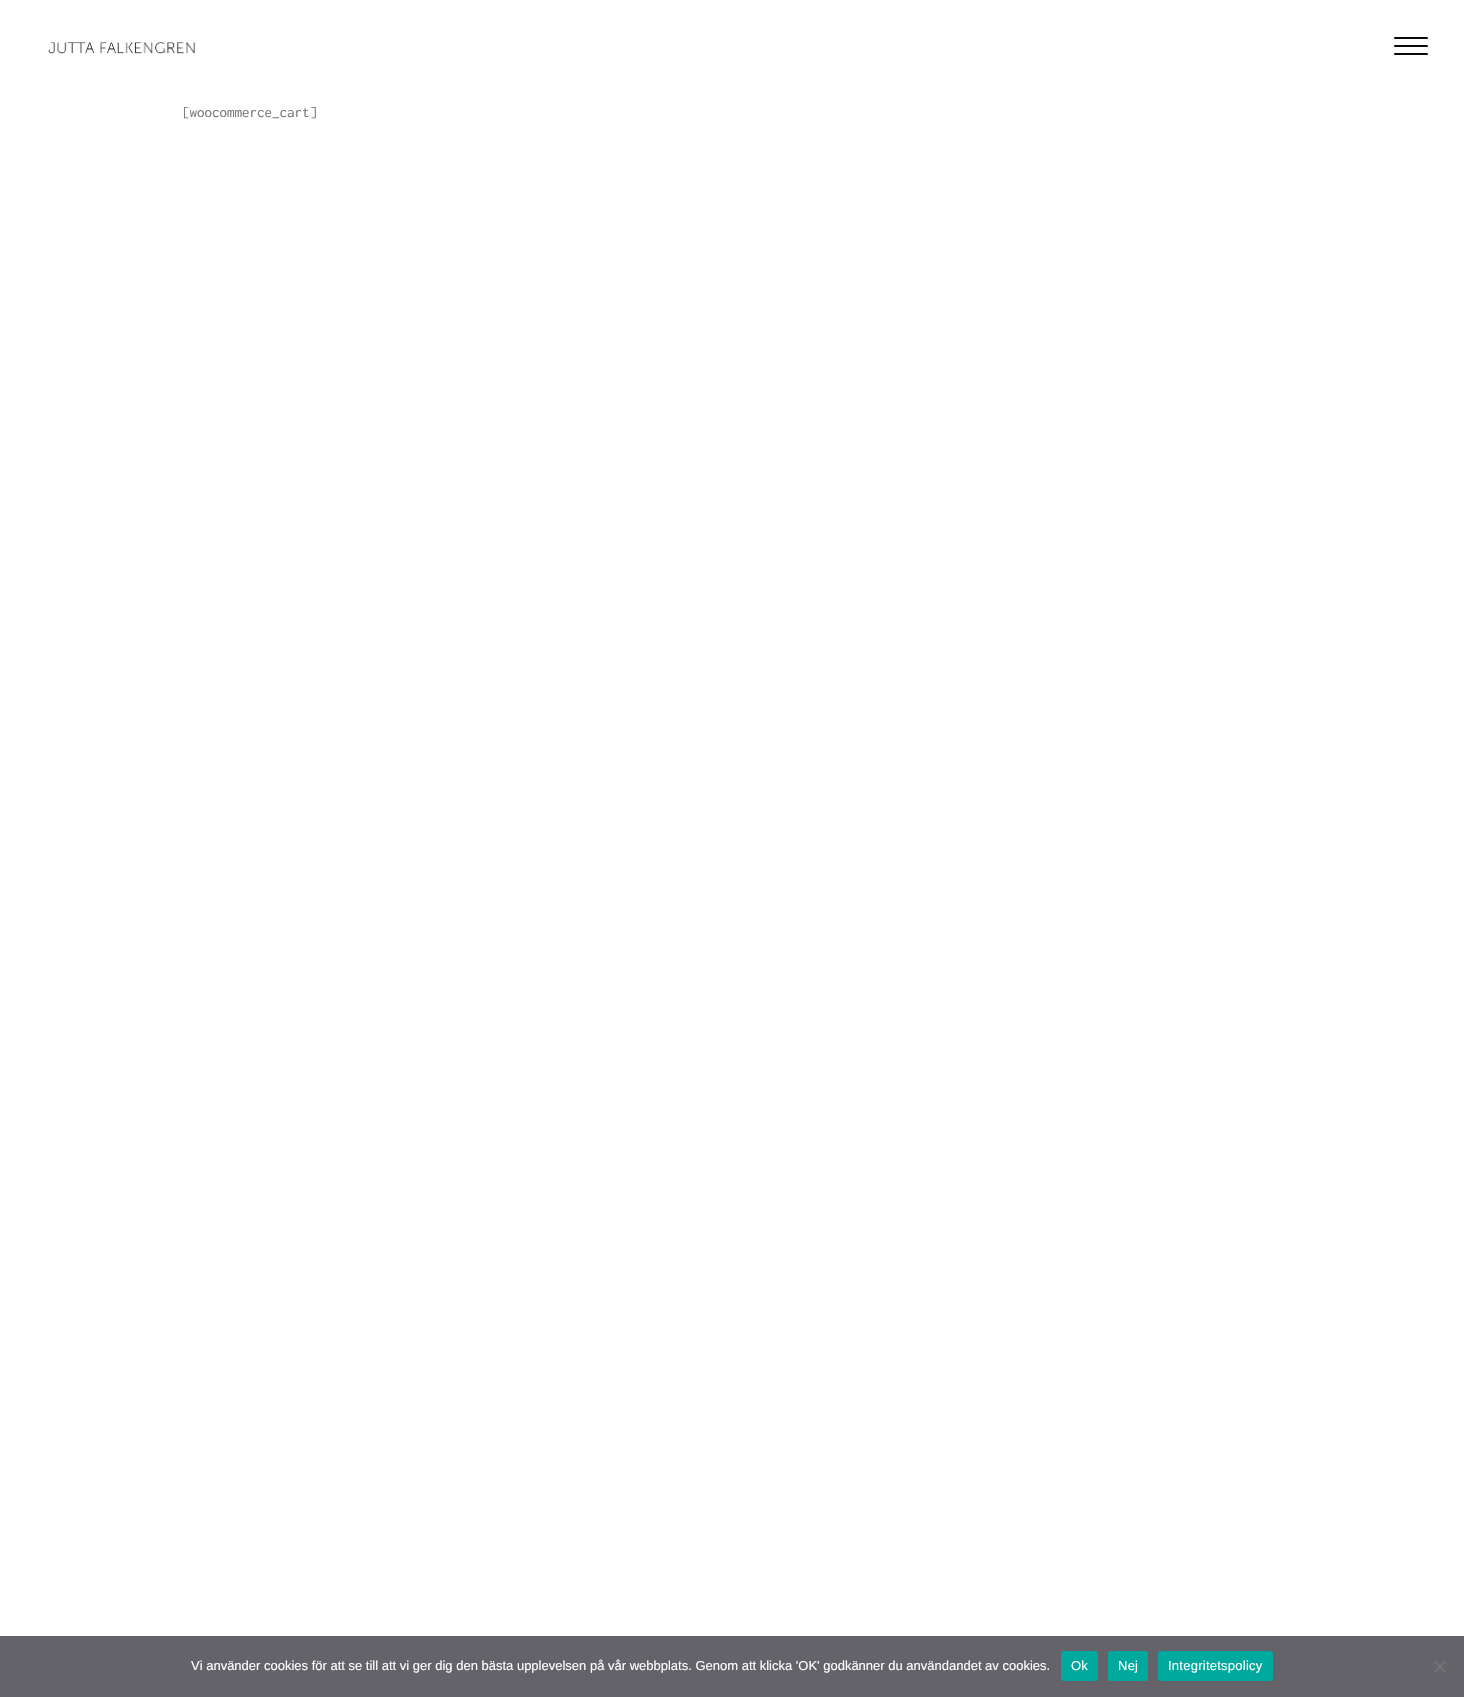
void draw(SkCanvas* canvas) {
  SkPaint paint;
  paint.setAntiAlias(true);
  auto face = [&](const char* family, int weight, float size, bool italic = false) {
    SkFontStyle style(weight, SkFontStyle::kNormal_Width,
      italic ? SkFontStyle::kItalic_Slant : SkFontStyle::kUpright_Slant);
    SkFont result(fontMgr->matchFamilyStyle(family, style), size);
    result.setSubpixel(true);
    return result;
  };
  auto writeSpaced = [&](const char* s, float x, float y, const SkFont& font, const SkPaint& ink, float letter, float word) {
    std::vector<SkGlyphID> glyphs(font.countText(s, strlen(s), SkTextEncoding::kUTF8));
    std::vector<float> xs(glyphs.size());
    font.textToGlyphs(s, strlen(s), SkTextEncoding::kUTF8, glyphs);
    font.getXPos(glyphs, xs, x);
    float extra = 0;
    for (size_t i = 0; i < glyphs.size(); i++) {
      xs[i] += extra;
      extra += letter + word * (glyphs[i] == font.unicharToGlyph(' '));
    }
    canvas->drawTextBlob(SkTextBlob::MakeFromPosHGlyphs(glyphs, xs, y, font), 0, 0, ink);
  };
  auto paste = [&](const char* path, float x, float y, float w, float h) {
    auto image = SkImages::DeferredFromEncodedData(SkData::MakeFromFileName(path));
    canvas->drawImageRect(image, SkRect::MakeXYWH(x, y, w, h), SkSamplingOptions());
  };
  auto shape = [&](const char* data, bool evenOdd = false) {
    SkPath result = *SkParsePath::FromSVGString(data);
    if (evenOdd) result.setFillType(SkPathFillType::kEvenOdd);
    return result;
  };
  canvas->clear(0xffffffff);
  paste("img/1.png", 48, 42, 148, 12);
  paint.setColor(0xff080808);
  canvas->drawRoundRect(SkRect::MakeXYWH(1394, 37, 34, 2), 1, 1, paint);
  canvas->drawRoundRect(SkRect::MakeXYWH(1394, 45, 34, 2), 1, 1, paint);
  canvas->drawRoundRect(SkRect::MakeXYWH(1394, 53, 34, 2), 1, 1, paint);
  paint.setColor(0xff636369);
  canvas->drawRect(SkRect::MakeXYWH(0, 1636, 1464, 61), paint);
  paint.setColor(0xff00a99d);
  canvas->drawRoundRect(SkRect::MakeXYWH(1061, 1651, 37, 30), 3, 3, paint);
  canvas->drawRoundRect(SkRect::MakeXYWH(1108, 1651, 40, 30), 3, 3, paint);
  canvas->drawRoundRect(SkRect::MakeXYWH(1158, 1651, 115, 30), 3, 3, paint);
  paint.setColor(0xff727275);
  canvas->drawPath(shape("M1444.5 1660.5L1446 1662L1435.5 1673L1434 1671.5Z"), paint);
  canvas->drawPath(shape("M1434 1662L1435.5 1660.5L1446 1671.5L1444.5 1673Z"), paint);
  auto f0 = face("Inconsolata", 400, 15);
  paint.setColor(0xff777777);
  canvas->drawString("[woocommerce_cart]", 182, 117, f0, paint);
  auto f1 = face("Liberation Sans", 400, 13);
  paint.setColor(0xffffffff);
  canvas->drawString("Vi använder cookies för att se till att vi ger dig den bästa upplevelsen på vår webbplats. Genom att klicka 'OK' godkänner du användandet av cookies.", 191, 1670, f1, paint);
  {
    const struct { const char* s; float x, y; } items[] = {
      {"Ok", 1071, 1670},
      {"Nej", 1118, 1670},
      {"Integritetspolicy", 1168, 1670},
    };
    for (auto [s, x, y] : items) {
      writeSpaced(s, x, y, f1, paint, 0.25f, 0);
    }
  }
}
